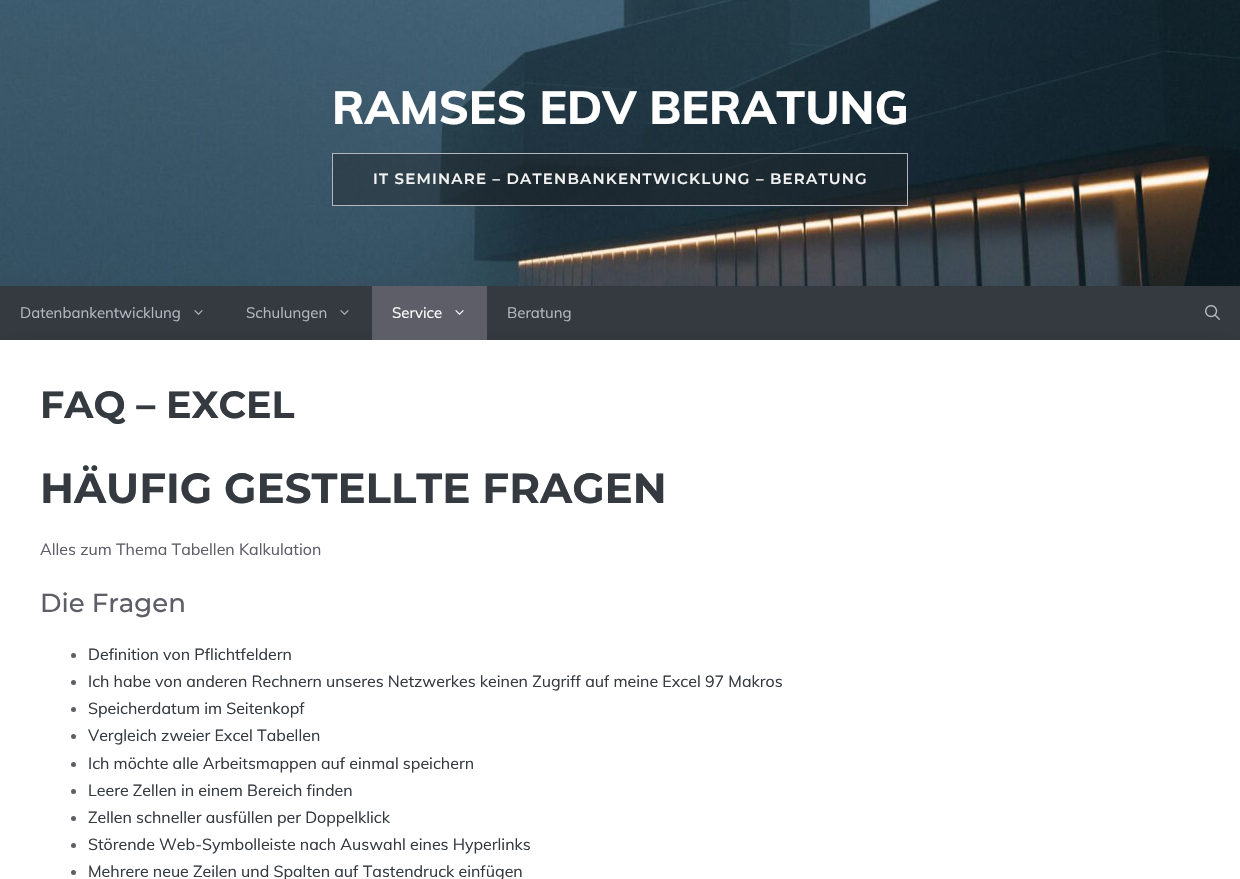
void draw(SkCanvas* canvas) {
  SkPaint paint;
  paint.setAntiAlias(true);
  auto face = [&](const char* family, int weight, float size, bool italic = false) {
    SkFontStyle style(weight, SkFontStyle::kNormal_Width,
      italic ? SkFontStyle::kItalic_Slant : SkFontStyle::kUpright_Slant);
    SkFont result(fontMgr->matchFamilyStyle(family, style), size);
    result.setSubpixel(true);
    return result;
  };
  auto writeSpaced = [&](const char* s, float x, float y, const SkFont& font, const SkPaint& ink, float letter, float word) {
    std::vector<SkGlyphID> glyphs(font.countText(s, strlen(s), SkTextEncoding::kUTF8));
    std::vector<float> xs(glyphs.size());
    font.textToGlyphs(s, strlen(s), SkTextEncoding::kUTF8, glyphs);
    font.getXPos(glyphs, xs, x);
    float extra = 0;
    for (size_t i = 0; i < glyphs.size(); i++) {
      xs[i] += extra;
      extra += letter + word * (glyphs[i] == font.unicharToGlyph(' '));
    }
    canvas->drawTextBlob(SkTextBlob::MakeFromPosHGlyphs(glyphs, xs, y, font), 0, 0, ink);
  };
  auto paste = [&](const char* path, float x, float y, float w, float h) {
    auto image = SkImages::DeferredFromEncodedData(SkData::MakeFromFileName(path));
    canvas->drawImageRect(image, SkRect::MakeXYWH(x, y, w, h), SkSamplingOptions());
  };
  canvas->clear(0xff343a40);
  paste("img/1.png", 0, 0, 1240, 286);
  paint.setColor(0x661f2024);
  canvas->drawRect(SkRect::MakeXYWH(332.5f, 153.5f, 575, 52), paint);
  paint.setStroke(true);
  paint.setStrokeWidth(1);
  paint.setColor(0xffb5b7bf);
  canvas->drawRect(SkRect::MakeXYWH(332.5f, 153.5f, 575, 52), paint);
  paste("img/2.png", 194, 310, 9, 5);
  paste("img/2.png", 340, 310, 9, 5);
  paint.setStroke(false);
  paint.setColor(0x4d000000);
  paint.setMaskFilter(SkMaskFilter::MakeBlur(kNormal_SkBlurStyle, 10));
  canvas->drawRect(SkRect::MakeXYWH(10, 350, 1220, 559), paint);
  paint.setMaskFilter(nullptr);
  paint.setColor(0xff5e5e69);
  canvas->drawRect(SkRect::MakeXYWH(372, 286, 115, 54), paint);
  paste("img/3.png", 455, 310, 9, 5);
  paste("img/4.png", 1205, 305, 15, 15);
  paint.setColor(0xffffffff);
  canvas->drawRect(SkRect::MakeXYWH(0, 340, 1240, 539), paint);
  paint.setColor(0xff5e5e69);
  canvas->drawCircle(73.5f, 655.5f, 2.5f, paint);
  canvas->drawCircle(73.5f, 682.5f, 2.5f, paint);
  canvas->drawCircle(73.5f, 709.5f, 2.5f, paint);
  canvas->drawCircle(73.5f, 736.5f, 2.5f, paint);
  canvas->drawCircle(73.5f, 764.5f, 2.5f, paint);
  canvas->drawCircle(73.5f, 791.5f, 2.5f, paint);
  canvas->drawCircle(73.5f, 818.5f, 2.5f, paint);
  canvas->drawCircle(73.5f, 845.5f, 2.5f, paint);
  canvas->drawCircle(73.5f, 872.5f, 2.5f, paint);
  auto f0 = face("Muli", 800, 46);
  paint.setColor(0xffffffff);
  canvas->drawString("RAMSES EDV BERATUNG", 332, 124, f0, paint);
  auto f1 = face("Montserrat", 600, 15);
  paint.setColor(0xfff2f2f2);
  writeSpaced("IT SEMINARE – DATENBANKENTWICKLUNG – BERATUNG", 373, 184, f1, paint, 1.2f, 0);
  auto f2 = face("Muli", 400, 15);
  paint.setColor(0xffb5b7bf);
  canvas->drawString("Datenbankentwicklung", 20, 318, f2, paint);
  canvas->drawString("Schulungen", 246, 318, f2, paint);
  paint.setColor(0xffffffff);
  canvas->drawString("Service", 392, 318, f2, paint);
  paint.setColor(0xffb5b7bf);
  canvas->drawString("Beratung", 507, 318, f2, paint);
  auto f3 = face("Montserrat", 700, 38);
  paint.setColor(0xff343a40);
  canvas->drawString("FAQ – EXCEL", 40, 418, f3, paint);
  auto f4 = face("Montserrat", 700, 42);
  canvas->drawString("HÄUFIG GESTELLTE FRAGEN", 40, 503, f4, paint);
  auto f5 = face("Muli", 400, 16);
  paint.setColor(0xff5e5e69);
  canvas->drawString("Alles zum Thema Tabellen Kalkulation", 40, 555, f5, paint);
  auto f6 = face("Montserrat", 500, 26);
  canvas->drawString("Die Fragen", 40, 612, f6, paint);
  paint.setColor(0xff343a40);
  {
    const struct { const char* s; float x, y; } items[] = {
      {"Definition von Pflichtfeldern", 88, 660},
      {"Ich habe von anderen Rechnern unseres Netzwerkes keinen Zugriff auf meine Excel 97 Makros", 88, 687},
      {"Speicherdatum im Seitenkopf", 88, 714},
      {"Vergleich zweier Excel Tabellen", 88, 741},
      {"Ich möchte alle Arbeitsmappen auf einmal speichern", 88, 769},
      {"Leere Zellen in einem Bereich finden", 88, 796},
      {"Zellen schneller ausfüllen per Doppelklick", 88, 823},
      {"Störende Web-Symbolleiste nach Auswahl eines Hyperlinks", 88, 850},
      {"Mehrere neue Zeilen und Spalten auf Tastendruck einfügen", 88, 877},
    };
    for (auto [s, x, y] : items) {
      canvas->drawString(s, x, y, f5, paint);
    }
  }
}
